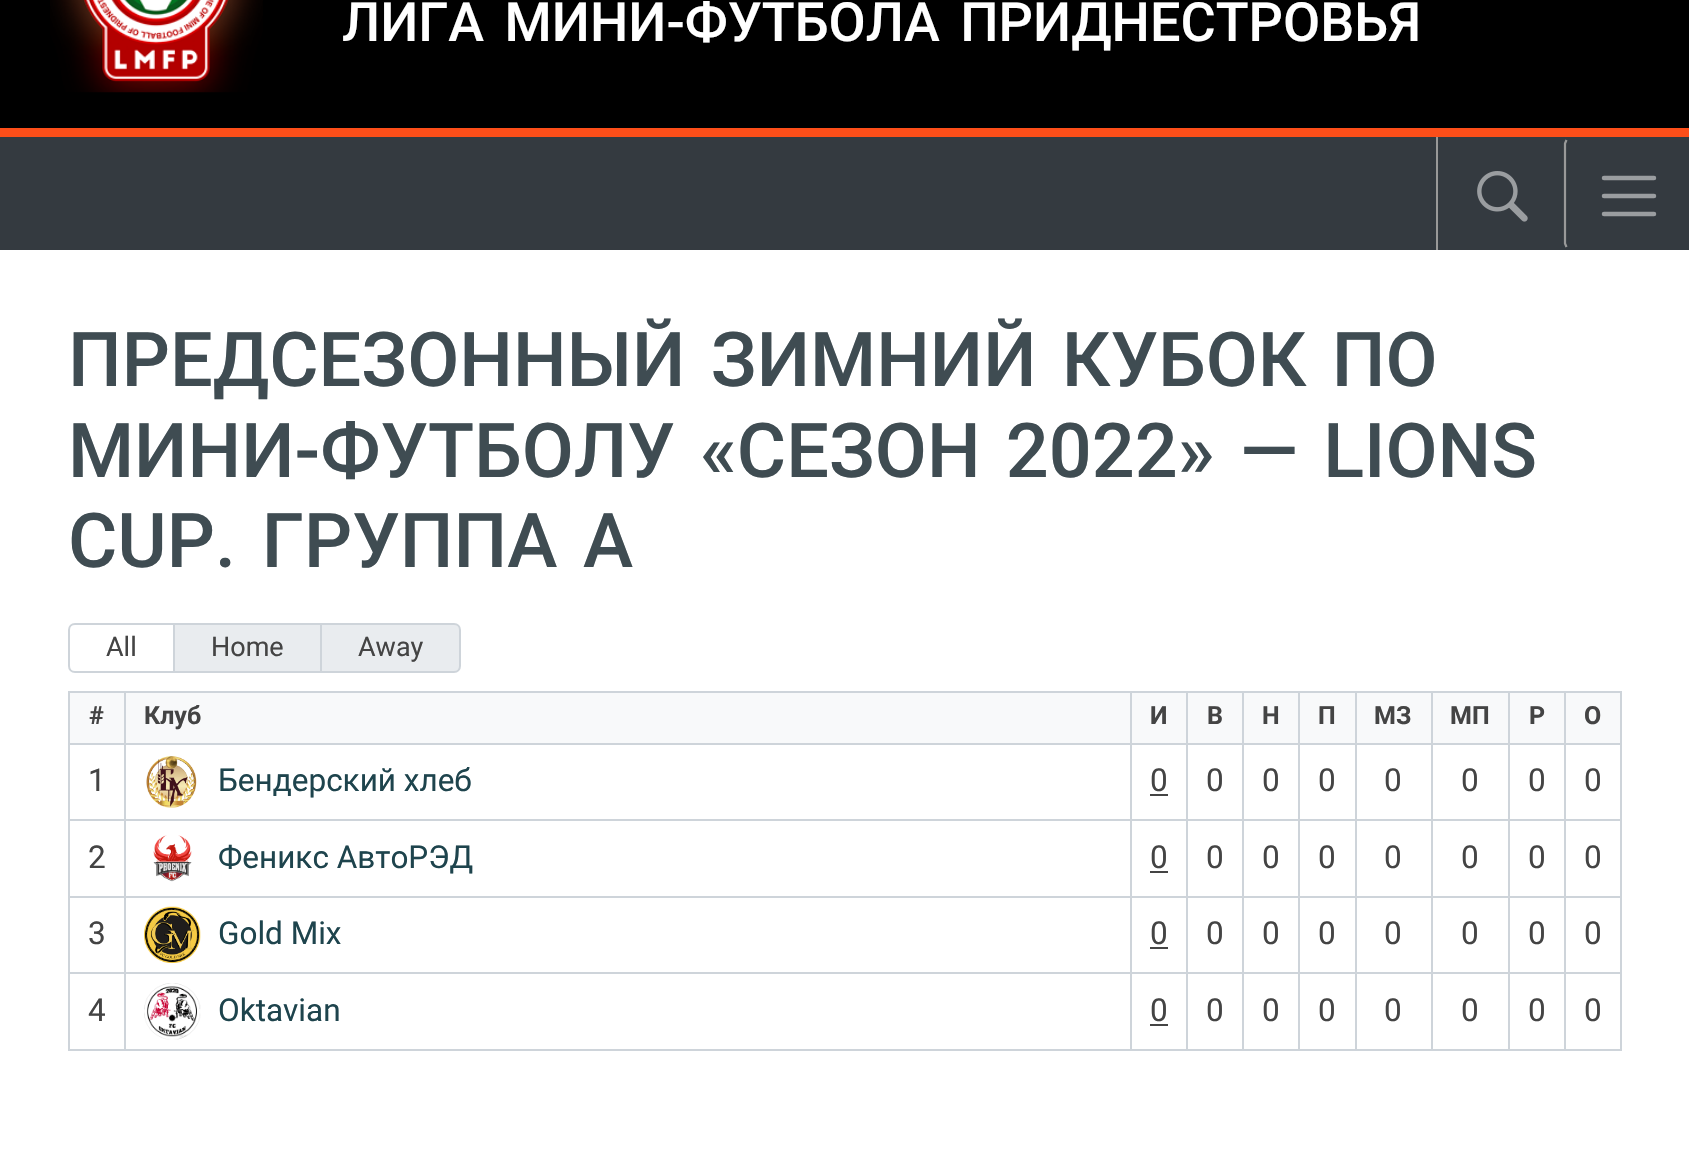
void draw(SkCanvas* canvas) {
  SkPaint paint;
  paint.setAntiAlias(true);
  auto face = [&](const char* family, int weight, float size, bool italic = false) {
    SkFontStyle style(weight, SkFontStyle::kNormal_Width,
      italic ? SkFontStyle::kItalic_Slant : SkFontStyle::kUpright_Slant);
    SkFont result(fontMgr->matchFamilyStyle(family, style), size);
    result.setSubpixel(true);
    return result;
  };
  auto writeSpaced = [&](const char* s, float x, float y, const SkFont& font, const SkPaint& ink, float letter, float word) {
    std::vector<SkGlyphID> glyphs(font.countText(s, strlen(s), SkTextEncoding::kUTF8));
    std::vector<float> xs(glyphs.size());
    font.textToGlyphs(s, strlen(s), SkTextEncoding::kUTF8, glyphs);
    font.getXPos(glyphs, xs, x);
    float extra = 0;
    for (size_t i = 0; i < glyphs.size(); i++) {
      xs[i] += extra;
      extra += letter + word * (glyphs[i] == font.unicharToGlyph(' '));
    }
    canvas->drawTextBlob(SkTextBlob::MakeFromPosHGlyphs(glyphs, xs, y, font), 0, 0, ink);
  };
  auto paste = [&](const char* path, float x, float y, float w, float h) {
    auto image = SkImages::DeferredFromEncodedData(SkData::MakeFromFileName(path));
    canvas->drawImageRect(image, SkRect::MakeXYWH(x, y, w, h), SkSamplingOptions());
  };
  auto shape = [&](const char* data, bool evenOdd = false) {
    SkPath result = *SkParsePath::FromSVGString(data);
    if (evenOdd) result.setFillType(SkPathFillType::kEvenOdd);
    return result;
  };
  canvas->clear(0xff000000);
  paste("img/1.png", 50, 0, 213, 93);
  {
    const struct { float x, y, w, h; SkColor color; } items[] = {
      {0, 137, 1689, 113, 0xff343a40},
      {0, 128, 1689, 9, 0xfffc4e19},
      {1436, 137, 2, 113, 0xff999999},
    };
    for (auto [x, y, w, h, color] : items) {
      paint.setColor(color);
      canvas->drawRect(SkRect::MakeXYWH(x, y, w, h), paint);
    }
  }
  paste("img/2.png", 1477, 171, 51, 51);
  paint.setStroke(true);
  paint.setStrokeWidth(2.2f);
  canvas->drawPath(shape("M1566.5 247L1565 243.5V143.5L1566.5 140"), paint);
  paint.setStrokeWidth(4.5f);
  paint.setStrokeCap(SkPaint::kRound_Cap);
  paint.setColor(0xff9a9da0);
  canvas->drawPath(shape("M1604 178H1654M1604 196H1654M1604 214H1654"), paint);
  paint.setStroke(false);
  paint.setColor(0xffffffff);
  canvas->drawRect(SkRect::MakeXYWH(0, 250, 1689, 918), paint);
  paint.setStroke(true);
  paint.setStrokeWidth(2);
  paint.setStrokeCap(SkPaint::kButt_Cap);
  paint.setColor(0xffced4da);
  canvas->drawPath(shape("M75 624H175V672H75C71.5 672 69 669.5 69 666V630C69 626.5 71.5 624 75 624Z"), paint);
  paint.setStroke(false);
  paint.setColor(0xffe9ecef);
  canvas->drawRect(SkRect::MakeXYWH(174, 624, 147, 48), paint);
  paint.setStroke(true);
  paint.setColor(0xffced4da);
  canvas->drawRect(SkRect::MakeXYWH(174, 624, 147, 48), paint);
  paint.setStroke(false);
  paint.setColor(0xffe9ecef);
  canvas->drawPath(shape("M321 624H454C457.5 624 460 626.5 460 630V666C460 669.5 457.5 672 454 672H321Z"), paint);
  paint.setStroke(true);
  paint.setColor(0xffced4da);
  canvas->drawPath(shape("M321 624H454C457.5 624 460 626.5 460 630V666C460 669.5 457.5 672 454 672H321Z"), paint);
  paint.setStroke(false);
  {
    const struct { float x, y, w, h; SkColor color; } items[] = {
      {68, 691, 1554, 2, 0xffced4da},
      {68, 691, 2, 360, 0xffced4da},
      {70, 693, 54, 50, 0xfff8f9fa},
      {124, 693, 2, 358, 0xffced4da},
      {70, 743, 56, 2, 0xffced4da},
      {126, 693, 1004, 50, 0xfff8f9fa},
      {1130, 693, 2, 358, 0xffced4da},
      {126, 743, 1006, 2, 0xffced4da},
      {1132, 693, 54, 50, 0xfff8f9fa},
      {1186, 693, 2, 358, 0xffced4da},
      {1132, 743, 56, 2, 0xffced4da},
      {1188, 693, 54, 50, 0xfff8f9fa},
      {1242, 693, 2, 358, 0xffced4da},
      {1188, 743, 56, 2, 0xffced4da},
      {1244, 693, 111, 50, 0xfff8f9fa},
      {1298, 693, 2, 358, 0xffced4da},
      {1244, 743, 57, 2, 0xffced4da},
      {1355, 693, 2, 358, 0xffced4da},
      {1301, 743, 56, 2, 0xffced4da},
      {1357, 693, 74, 50, 0xfff8f9fa},
      {1431, 693, 2, 358, 0xffced4da},
      {1357, 743, 76, 2, 0xffced4da},
      {1433, 693, 75, 50, 0xfff8f9fa},
      {1508, 693, 2, 358, 0xffced4da},
      {1433, 743, 77, 2, 0xffced4da},
      {1510, 693, 54, 50, 0xfff8f9fa},
      {1564, 693, 2, 358, 0xffced4da},
      {1510, 743, 56, 2, 0xffced4da},
      {1566, 693, 54, 50, 0xfff8f9fa},
      {1620, 693, 2, 358, 0xffced4da},
      {1566, 743, 56, 2, 0xffced4da},
    };
    for (auto [x, y, w, h, color] : items) {
      paint.setColor(color);
      canvas->drawRect(SkRect::MakeXYWH(x, y, w, h), paint);
    }
  }
  paste("img/3.png", 146, 756, 51, 52);
  canvas->drawRect(SkRect::MakeXYWH(70, 819, 1552, 2), paint);
  paint.setColor(0xff444444);
  canvas->drawRect(SkRect::MakeXYWH(1150, 794, 18, 2), paint);
  paste("img/4.png", 153, 835, 39, 47);
  paint.setColor(0xffced4da);
  canvas->drawRect(SkRect::MakeXYWH(70, 896, 1552, 2), paint);
  paint.setColor(0xff444444);
  canvas->drawRect(SkRect::MakeXYWH(1150, 871, 18, 2), paint);
  paste("img/5.png", 144, 906, 57, 57);
  paint.setColor(0xffced4da);
  canvas->drawRect(SkRect::MakeXYWH(70, 972, 1552, 2), paint);
  paint.setColor(0xff444444);
  canvas->drawRect(SkRect::MakeXYWH(1150, 947, 18, 2), paint);
  paste("img/6.png", 144, 983, 57, 57);
  paint.setColor(0xffced4da);
  canvas->drawRect(SkRect::MakeXYWH(70, 1049, 1552, 2), paint);
  paint.setColor(0xff444444);
  canvas->drawRect(SkRect::MakeXYWH(1150, 1024, 18, 2), paint);
  auto f0 = face("Roboto", 500, 54);
  paint.setColor(0xffffffff);
  writeSpaced("ЛИГА МИНИ-ФУТБОЛА ПРИДНЕСТРОВЬЯ", 342, 41, f0, paint, 0, 7);
  auto f1 = face("Roboto", 500, 75.6f);
  paint.setColor(0xff3f4c52);
  writeSpaced("ПРЕДСЕЗОННЫЙ ЗИМНИЙ КУБОК ПО", 68, 386, f1, paint, 0, 6.5f);
  writeSpaced("МИНИ-ФУТБОЛУ «СЕЗОН 2022» — LIONS", 68, 477, f1, paint, 0, 6.5f);
  writeSpaced("CUP. ГРУППА А", 68, 567, f1, paint, 0, 7);
  auto f2 = face("Roboto", 400, 27);
  paint.setColor(0xff444444);
  {
    const struct { const char* s; float x, y; } items[] = {
      {"All", 106, 656},
      {"Home", 211, 656},
      {"Away", 358, 656},
    };
    for (auto [s, x, y] : items) {
      canvas->drawString(s, x, y, f2, paint);
    }
  }
  auto f3 = face("Roboto", 700, 25);
  {
    const struct { const char* s; float x, y; } items[] = {
      {"#", 89, 724},
      {"Клуб", 144, 724},
      {"И", 1150, 724},
      {"В", 1207, 724},
      {"Н", 1262, 724},
      {"П", 1318, 724},
      {"МЗ", 1374, 724},
      {"МП", 1450, 724},
      {"Р", 1529, 724},
      {"О", 1584, 724},
    };
    for (auto [s, x, y] : items) {
      canvas->drawString(s, x, y, f3, paint);
    }
  }
  auto f4 = face("Roboto", 400, 31.5f);
  canvas->drawString("1", 88, 791, f4, paint);
  paint.setColor(0xff1e444d);
  canvas->drawString("Бендерский хлеб", 218, 791, f4, paint);
  paint.setColor(0xff444444);
  {
    const struct { const char* s; float x, y; } items[] = {
      {"0", 1150, 791},
      {"0", 1206, 791},
      {"0", 1262, 791},
      {"0", 1318, 791},
      {"0", 1384, 791},
      {"0", 1461, 791},
      {"0", 1528, 791},
      {"0", 1584, 791},
      {"2", 88, 868},
    };
    for (auto [s, x, y] : items) {
      canvas->drawString(s, x, y, f4, paint);
    }
  }
  paint.setColor(0xff1e444d);
  canvas->drawString("Феникс АвтоРЭД", 218, 868, f4, paint);
  paint.setColor(0xff444444);
  {
    const struct { const char* s; float x, y; } items[] = {
      {"0", 1150, 868},
      {"0", 1206, 868},
      {"0", 1262, 868},
      {"0", 1318, 868},
      {"0", 1384, 868},
      {"0", 1461, 868},
      {"0", 1528, 868},
      {"0", 1584, 868},
      {"3", 88, 944},
    };
    for (auto [s, x, y] : items) {
      canvas->drawString(s, x, y, f4, paint);
    }
  }
  paint.setColor(0xff1e444d);
  canvas->drawString("Gold Mix", 218, 944, f4, paint);
  paint.setColor(0xff444444);
  {
    const struct { const char* s; float x, y; } items[] = {
      {"0", 1150, 944},
      {"0", 1206, 944},
      {"0", 1262, 944},
      {"0", 1318, 944},
      {"0", 1384, 944},
      {"0", 1461, 944},
      {"0", 1528, 944},
      {"0", 1584, 944},
      {"4", 88, 1021},
    };
    for (auto [s, x, y] : items) {
      canvas->drawString(s, x, y, f4, paint);
    }
  }
  paint.setColor(0xff1e444d);
  canvas->drawString("Oktavian", 218, 1021, f4, paint);
  paint.setColor(0xff444444);
  {
    const struct { const char* s; float x, y; } items[] = {
      {"0", 1150, 1021},
      {"0", 1206, 1021},
      {"0", 1262, 1021},
      {"0", 1318, 1021},
      {"0", 1384, 1021},
      {"0", 1461, 1021},
      {"0", 1528, 1021},
      {"0", 1584, 1021},
    };
    for (auto [s, x, y] : items) {
      canvas->drawString(s, x, y, f4, paint);
    }
  }
}
